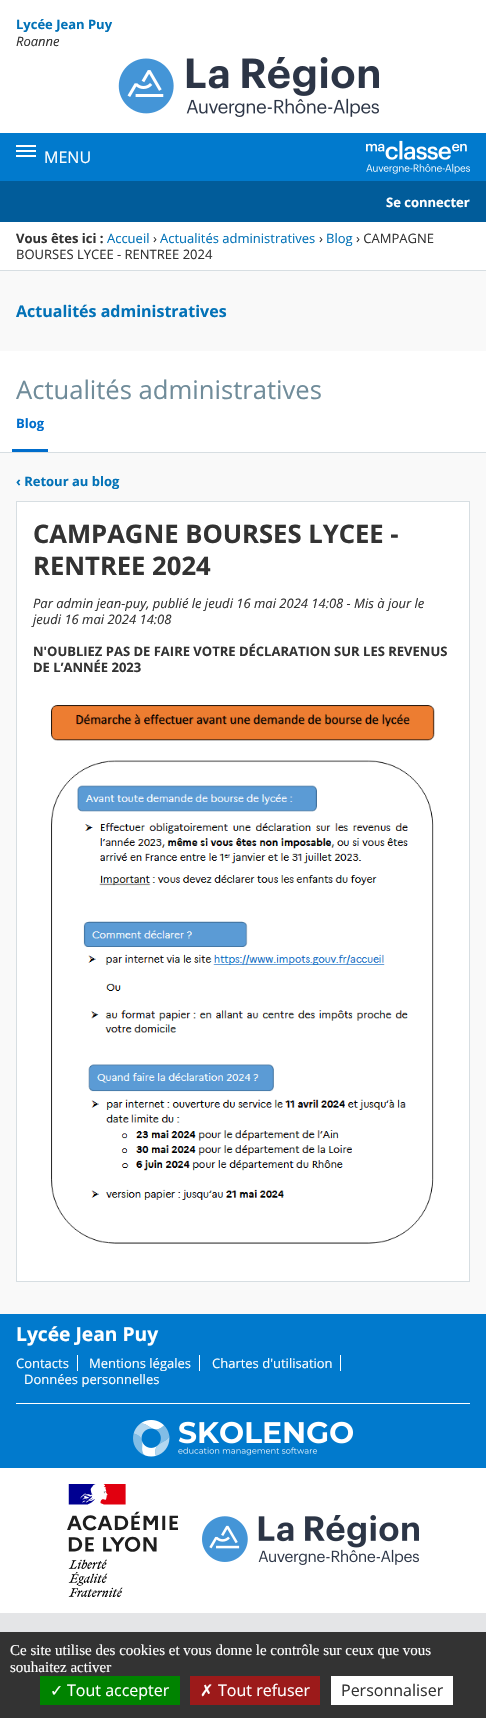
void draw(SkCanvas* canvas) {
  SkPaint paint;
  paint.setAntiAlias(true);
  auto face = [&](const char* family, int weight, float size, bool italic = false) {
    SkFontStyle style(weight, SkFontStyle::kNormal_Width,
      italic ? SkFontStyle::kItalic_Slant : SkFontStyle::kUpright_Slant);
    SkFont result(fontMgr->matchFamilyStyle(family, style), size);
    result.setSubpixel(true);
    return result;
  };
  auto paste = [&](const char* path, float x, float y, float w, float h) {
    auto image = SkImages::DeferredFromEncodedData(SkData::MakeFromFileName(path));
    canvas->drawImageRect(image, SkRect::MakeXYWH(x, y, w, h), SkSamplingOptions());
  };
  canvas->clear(0xffe4e5e7);
  paint.setColor(0xffffffff);
  canvas->drawRect(SkRect::MakeXYWH(0, 0, 486, 1613), paint);
  paste("img/1.png", 118, 57, 261, 60);
  paint.setColor(0xff017acd);
  canvas->drawRect(SkRect::MakeXYWH(0, 133, 486, 48), paint);
  paste("img/2.png", 366, 140, 104, 34);
  {
    const struct { float x, y, w, h; SkColor color; } items[] = {
      {16, 145, 20, 2, 0xffffffff},
      {16, 150, 20, 2, 0xffffffff},
      {16, 155, 20, 2, 0xffffffff},
      {0, 181, 486, 41, 0xff015c9a},
      {0, 270, 486, 1, 0xffd7dee2},
      {0, 271, 486, 1043, 0xfff9f9f9},
      {0, 351, 486, 101, 0xffffffff},
      {0, 452, 486, 1, 0xffd7dee2},
      {12, 449, 36, 3, 0xff006dcc},
    };
    for (auto [x, y, w, h, color] : items) {
      paint.setColor(color);
      canvas->drawRect(SkRect::MakeXYWH(x, y, w, h), paint);
    }
  }
  paint.setColor(0xffffffff);
  canvas->drawRect(SkRect::MakeXYWH(16.5f, 501.5f, 453, 780), paint);
  paint.setStroke(true);
  paint.setStrokeWidth(1);
  paint.setColor(0xffd7dee2);
  canvas->drawRect(SkRect::MakeXYWH(16.5f, 501.5f, 453, 780), paint);
  paste("img/3.png", 51, 705, 384, 539);
  paint.setStroke(false);
  {
    const struct { float x, y, w, h; SkColor color; } items[] = {
      {0, 1314, 486, 154, 0xff017acd},
      {77, 1355, 1, 16, 0xffffffff},
      {199, 1355, 1, 16, 0xffffffff},
      {340, 1355, 1, 16, 0xffffffff},
      {16, 1403, 454, 1, 0xffffffff},
    };
    for (auto [x, y, w, h, color] : items) {
      paint.setColor(color);
      canvas->drawRect(SkRect::MakeXYWH(x, y, w, h), paint);
    }
  }
  paste("img/4.png", 133, 1420, 220, 37);
  paste("img/5.png", 67, 1484, 111, 113);
  paste("img/6.png", 202, 1515, 217, 50);
  {
    const struct { float x, y, w, h; SkColor color; } items[] = {
      {0, 1632, 486, 86, 0xff333333},
      {40, 1676, 140, 29, 0xff008300},
      {190, 1676, 130, 29, 0xff9c1a1a},
      {331, 1676, 122, 29, 0xffffffff},
    };
    for (auto [x, y, w, h, color] : items) {
      paint.setColor(color);
      canvas->drawRect(SkRect::MakeXYWH(x, y, w, h), paint);
    }
  }
  auto f0 = face("Open Sans", 700, 13);
  paint.setColor(0xff0372b7);
  canvas->drawString("Lycée Jean Puy", 16, 29, f0, paint);
  auto f1 = face("Open Sans", 400, 13, true);
  paint.setColor(0xff333333);
  canvas->drawString("Roanne", 16, 46, f1, paint);
  auto f2 = face("Open Sans", 400, 16);
  paint.setColor(0xffffffff);
  canvas->drawString("MENU", 44, 163, f2, paint);
  canvas->drawString("Se connecter", 386, 207, f0, paint);
  paint.setColor(0xff333333);
  canvas->drawString("Vous êtes ici :", 16, 243, f0, paint);
  auto f3 = face("Open Sans", 400, 13);
  paint.setColor(0xff0372b7);
  canvas->drawString("Accueil", 107, 243, f3, paint);
  paint.setColor(0xff333333);
  canvas->drawString("›", 153, 243, f3, paint);
  paint.setColor(0xff0372b7);
  canvas->drawString("Actualités administratives", 160, 243, f3, paint);
  paint.setColor(0xff333333);
  canvas->drawString("›", 319, 243, f3, paint);
  paint.setColor(0xff0372b7);
  canvas->drawString("Blog", 326, 243, f3, paint);
  paint.setColor(0xff333333);
  canvas->drawString("› CAMPAGNE", 356, 243, f3, paint);
  canvas->drawString("BOURSES LYCEE - RENTREE 2024", 16, 259, f3, paint);
  auto f4 = face("Open Sans", 700, 16);
  paint.setColor(0xff0372b7);
  canvas->drawString("Actualités administratives", 16, 317, f4, paint);
  auto f5 = face("Open Sans", 400, 25.6f);
  paint.setColor(0xff708c9a);
  canvas->drawString("Actualités administratives", 16, 399, f5, paint);
  paint.setColor(0xff006dcc);
  canvas->drawString("Blog", 16, 428, f0, paint);
  paint.setColor(0xff0372b7);
  canvas->drawString("‹ Retour au blog", 16, 486, f0, paint);
  auto f6 = face("Open Sans", 700, 25.6f);
  paint.setColor(0xff333333);
  canvas->drawString("CAMPAGNE BOURSES LYCEE -", 33, 543, f6, paint);
  canvas->drawString("RENTREE 2024", 33, 575, f6, paint);
  canvas->drawString("Par admin jean-puy, publié le jeudi 16 mai 2024 14:08 - Mis à jour le", 33, 608, f1, paint);
  canvas->drawString("jeudi 16 mai 2024 14:08", 33, 624, f1, paint);
  canvas->drawString("N'OUBLIEZ PAS DE FAIRE VOTRE DÉCLARATION SUR LES REVENUS", 33, 656, f0, paint);
  canvas->drawString("DE L’ANNÉE 2023", 33, 672, f0, paint);
  auto f7 = face("Open Sans", 700, 19.25f);
  paint.setColor(0xffffffff);
  canvas->drawString("Lycée Jean Puy", 16, 1341, f7, paint);
  {
    const struct { const char* s; float x, y; } items[] = {
      {"Contacts", 16, 1368},
      {"Mentions légales", 89, 1368},
      {"Chartes d'utilisation", 212, 1368},
      {"Données personnelles", 24, 1384},
    };
    for (auto [s, x, y] : items) {
      canvas->drawString(s, x, y, f3, paint);
    }
  }
  auto f8 = face("Liberation Serif", 400, 15);
  canvas->drawString("Ce site utilise des cookies et vous donne le contrôle sur ceux que vous", 10, 1655, f8, paint);
  canvas->drawString("souhaitez activer", 10, 1672, f8, paint);
  auto f9 = face("DejaVu Sans", 400, 16);
  canvas->drawString("✓", 50, 1696, f9, paint);
  canvas->drawString("Tout accepter", 67, 1696, f2, paint);
  canvas->drawString("✗", 200, 1696, f9, paint);
  canvas->drawString("Tout refuser", 218, 1696, f2, paint);
  paint.setColor(0xff333333);
  canvas->drawString("Personnaliser", 341, 1696, f2, paint);
}
